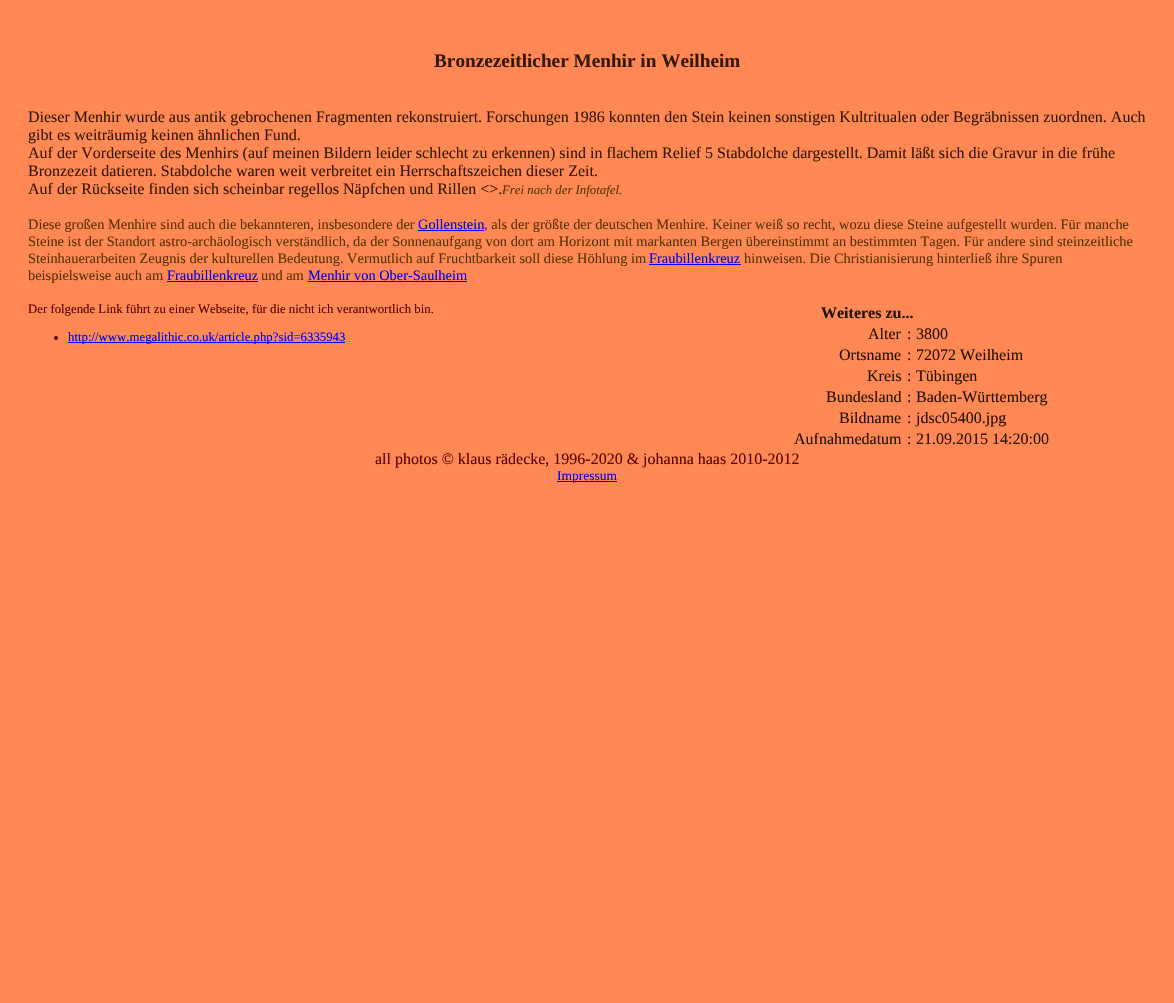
void draw(SkCanvas* canvas) {
  SkPaint paint;
  paint.setAntiAlias(true);
  auto face = [&](const char* family, int weight, float size, bool italic = false) {
    SkFontStyle style(weight, SkFontStyle::kNormal_Width,
      italic ? SkFontStyle::kItalic_Slant : SkFontStyle::kUpright_Slant);
    SkFont result(fontMgr->matchFamilyStyle(family, style), size);
    result.setSubpixel(true);
    return result;
  };
  canvas->clear(0xffff8855);
  {
    const struct { float x, y, w, h; SkColor color; } items[] = {
      {418, 230, 66, 1, 0xff0000ee},
      {649, 264, 92, 1, 0xff0000ee},
      {167, 281, 91, 1, 0xff0000ee},
      {308, 281, 159, 1, 0xff0000ee},
    };
    for (auto [x, y, w, h, color] : items) {
      paint.setColor(color);
      canvas->drawRect(SkRect::MakeXYWH(x, y, w, h), paint);
    }
  }
  paint.setColor(0xff550000);
  canvas->drawCircle(56, 338, 2, paint);
  paint.setColor(0xff0000ee);
  canvas->drawRect(SkRect::MakeXYWH(68, 342, 277, 1), paint);
  canvas->drawRect(SkRect::MakeXYWH(557, 481, 60, 1), paint);
  auto f0 = face("Liberation Serif", 700, 19.25f);
  paint.setColor(0xff331700);
  canvas->drawString("Bronzezeitlicher Menhir in Weilheim", 434, 67, f0, paint);
  auto f1 = face("Liberation Serif", 400, 16);
  {
    const struct { const char* s; float x, y; } items[] = {
      {"Dieser Menhir wurde aus antik gebrochenen Fragmenten rekonstruiert. Forschungen 1986 konnten den Stein keinen sonstigen Kultritualen oder Begräbnissen zuordnen. Auch", 28, 122},
      {"gibt es weiträumig keinen ähnlichen Fund.", 28, 140},
      {"Auf der Vorderseite des Menhirs (auf meinen Bildern leider schlecht zu erkennen) sind in flachem Relief 5 Stabdolche dargestellt. Damit läßt sich die Gravur in die frühe", 28, 158},
      {"Bronzezeit datieren. Stabdolche waren weit verbreitet ein Herrschaftszeichen dieser Zeit.", 28, 176},
      {"Auf der Rückseite finden sich scheinbar regellos Näpfchen und Rillen <>.", 28, 194},
    };
    for (auto [s, x, y] : items) {
      canvas->drawString(s, x, y, f1, paint);
    }
  }
  auto f2 = face("Liberation Serif", 400, 12.8f, true);
  paint.setColor(0xff553300);
  canvas->drawString("Frei nach der Infotafel.", 502, 194, f2, paint);
  auto f3 = face("Liberation Serif", 400, 14.4f);
  canvas->drawString("Diese großen Menhire sind auch die bekannteren, insbesondere der", 28, 229, f3, paint);
  paint.setColor(0xff0000ee);
  canvas->drawString("Gollenstein", 418, 229, f3, paint);
  paint.setColor(0xff553300);
  {
    const struct { const char* s; float x, y; } items[] = {
      {", als der größte der deutschen Menhire. Keiner weiß so recht, wozu diese Steine aufgestellt wurden. Für manche", 484, 229},
      {"Steine ist der Standort astro-archäologisch verständlich, da der Sonnenaufgang von dort am Horizont mit markanten Bergen übereinstimmt an bestimmten Tagen. Für andere sind steinzeitliche", 28, 246},
      {"Steinhauerarbeiten Zeugnis der kulturellen Bedeutung. Vermutlich auf Fruchtbarkeit soll diese Höhlung im", 28, 263},
    };
    for (auto [s, x, y] : items) {
      canvas->drawString(s, x, y, f3, paint);
    }
  }
  paint.setColor(0xff0000ee);
  canvas->drawString("Fraubillenkreuz", 649, 263, f3, paint);
  paint.setColor(0xff553300);
  canvas->drawString("hinweisen. Die Christianisierung hinterließ ihre Spuren", 744, 263, f3, paint);
  canvas->drawString("beispielsweise auch am", 28, 280, f3, paint);
  paint.setColor(0xff0000ee);
  canvas->drawString("Fraubillenkreuz", 167, 280, f3, paint);
  paint.setColor(0xff553300);
  canvas->drawString("und am", 261, 280, f3, paint);
  paint.setColor(0xff0000ee);
  canvas->drawString("Menhir von Ober-Saulheim", 308, 280, f3, paint);
  auto f4 = face("Liberation Serif", 400, 12.8f);
  paint.setColor(0xff550000);
  canvas->drawString("Der folgende Link führt zu einer Webseite, für die nicht ich verantwortlich bin.", 28, 313, f4, paint);
  paint.setColor(0xff0000ee);
  canvas->drawString("http://www.megalithic.co.uk/article.php?sid=6335943", 68, 341, f4, paint);
  auto f5 = face("Liberation Serif", 700, 16);
  paint.setColor(0xff221100);
  canvas->drawString("Weiteres zu...", 821, 318, f5, paint);
  {
    const struct { const char* s; float x, y; } items[] = {
      {"Alter", 868, 339},
      {":", 907, 339},
      {"3800", 916, 339},
      {"Ortsname", 839, 360},
      {":", 907, 360},
      {"72072 Weilheim", 916, 360},
      {"Kreis", 867, 381},
      {":", 907, 381},
      {"Tübingen", 916, 381},
      {"Bundesland", 826, 402},
      {":", 907, 402},
      {"Baden-Württemberg", 916, 402},
      {"Bildname", 839, 423},
      {":", 907, 423},
      {"jdsc05400.jpg", 916, 423},
      {"Aufnahmedatum", 794, 444},
      {":", 907, 444},
      {"21.09.2015 14:20:00", 916, 444},
    };
    for (auto [s, x, y] : items) {
      canvas->drawString(s, x, y, f1, paint);
    }
  }
  paint.setColor(0xff550000);
  canvas->drawString("all photos © klaus rädecke, 1996-2020 & johanna haas 2010-2012", 375, 464, f1, paint);
  auto f6 = face("Liberation Serif", 400, 13.5f);
  paint.setColor(0xff0000ee);
  canvas->drawString("Impressum", 557, 480, f6, paint);
}
